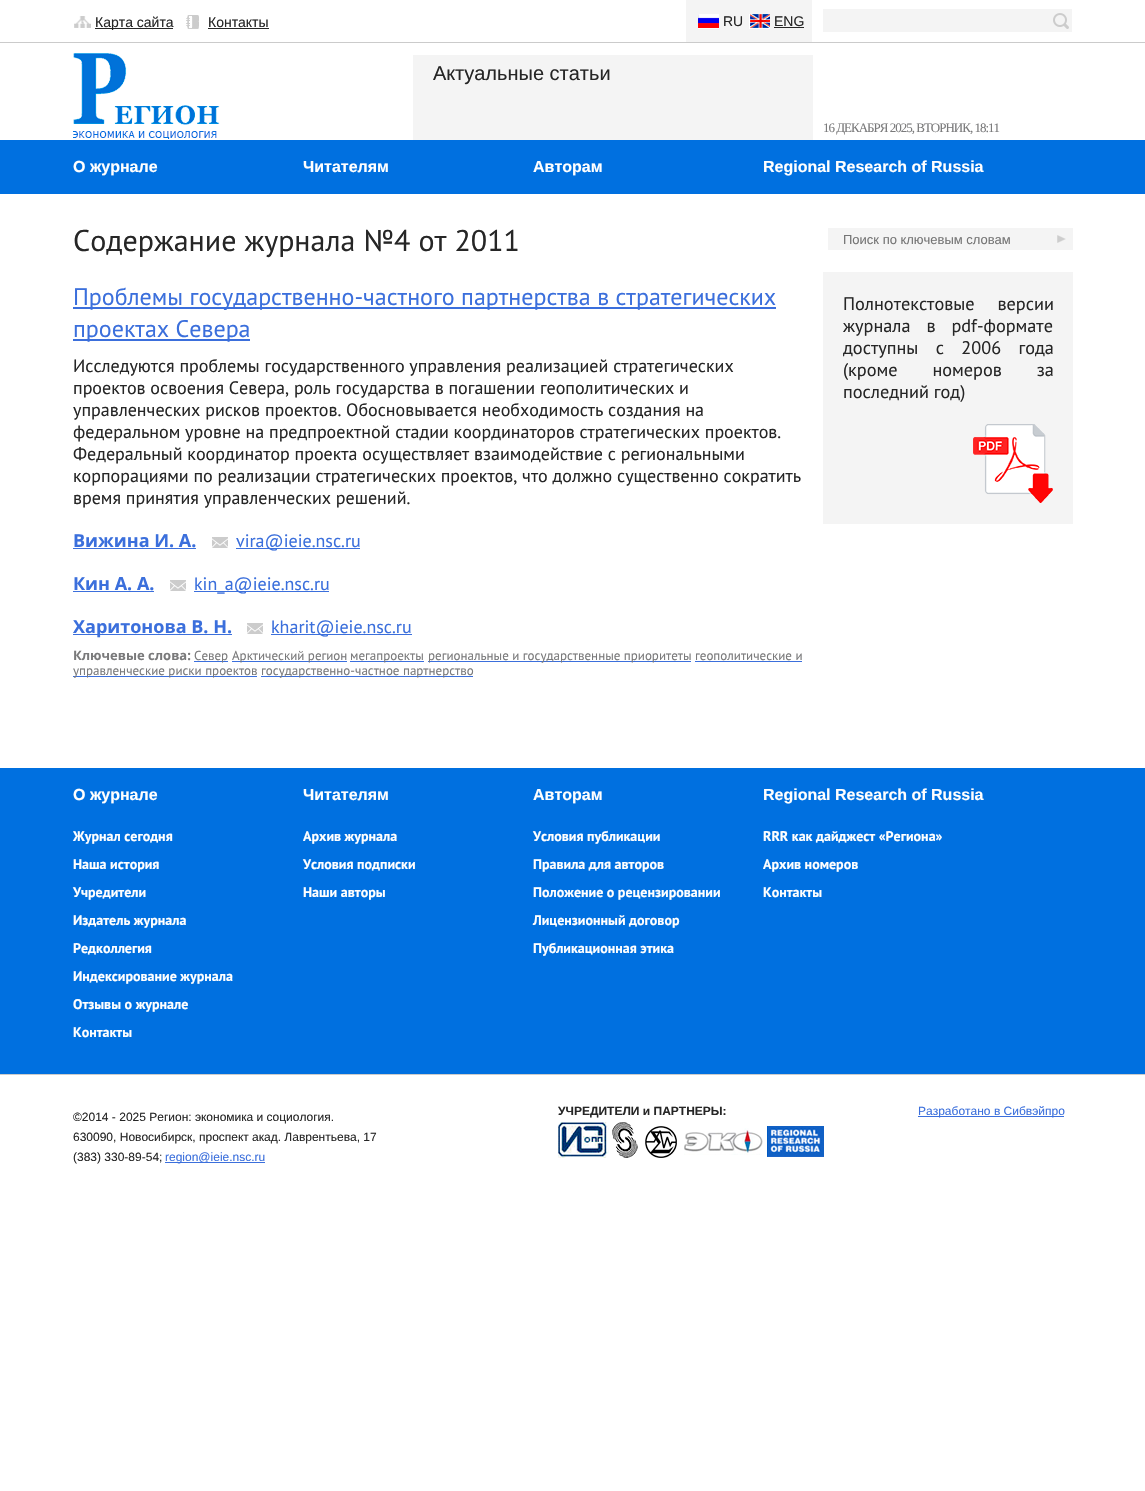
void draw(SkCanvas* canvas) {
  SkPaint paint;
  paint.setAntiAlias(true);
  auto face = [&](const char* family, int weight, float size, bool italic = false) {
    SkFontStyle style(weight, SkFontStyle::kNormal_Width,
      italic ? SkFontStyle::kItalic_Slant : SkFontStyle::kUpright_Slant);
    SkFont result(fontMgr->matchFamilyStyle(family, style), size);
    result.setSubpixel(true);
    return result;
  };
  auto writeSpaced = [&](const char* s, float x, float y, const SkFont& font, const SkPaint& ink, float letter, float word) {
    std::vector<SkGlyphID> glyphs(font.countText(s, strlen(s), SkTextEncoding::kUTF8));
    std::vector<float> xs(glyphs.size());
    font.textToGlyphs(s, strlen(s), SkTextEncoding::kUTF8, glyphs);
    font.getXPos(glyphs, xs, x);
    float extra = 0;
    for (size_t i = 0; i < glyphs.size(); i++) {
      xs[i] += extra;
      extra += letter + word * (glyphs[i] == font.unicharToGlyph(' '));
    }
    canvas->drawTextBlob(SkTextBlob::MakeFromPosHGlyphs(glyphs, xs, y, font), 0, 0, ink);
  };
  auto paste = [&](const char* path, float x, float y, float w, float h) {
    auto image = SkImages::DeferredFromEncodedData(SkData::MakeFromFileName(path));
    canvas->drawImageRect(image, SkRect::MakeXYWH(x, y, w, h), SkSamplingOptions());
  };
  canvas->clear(0xffffffff);
  paint.setColor(0xffcbcbcb);
  canvas->drawRect(SkRect::MakeXYWH(0, 42, 1145, 1), paint);
  paste("img/1.png", 74, 16, 17, 12);
  paint.setColor(0xff262626);
  canvas->drawRect(SkRect::MakeXYWH(95, 28, 78, 1), paint);
  paste("img/2.png", 186, 15, 13, 14);
  canvas->drawRect(SkRect::MakeXYWH(208, 28, 61, 1), paint);
  paint.setColor(0xfff4f4f4);
  canvas->drawRect(SkRect::MakeXYWH(686, 0, 126, 42), paint);
  paste("img/3.png", 698, 14, 21, 15);
  paste("img/4.png", 749, 14, 21, 15);
  paint.setColor(0xff262626);
  canvas->drawRect(SkRect::MakeXYWH(774, 27, 30, 1), paint);
  paint.setColor(0xfff4f4f4);
  canvas->drawRect(SkRect::MakeXYWH(823, 9, 249, 23), paint);
  paste("img/5.png", 1053, 13, 16, 16);
  paste("img/6.png", 73, 53, 147, 86);
  {
    const struct { float x, y, w, h; SkColor color; } items[] = {
      {413, 55, 400, 85, 0xfff4f4f4},
      {0, 140, 1145, 54, 0xff0070e0},
      {73, 307, 703, 2, 0xff3b6fdc},
      {73, 339, 177, 2, 0xff3b6fdc},
      {73, 548, 123, 1, 0xff3b6fdc},
    };
    for (auto [x, y, w, h, color] : items) {
      paint.setColor(color);
      canvas->drawRect(SkRect::MakeXYWH(x, y, w, h), paint);
    }
  }
  paste("img/7.png", 212, 537, 16, 11);
  canvas->drawRect(SkRect::MakeXYWH(236, 548, 124, 1), paint);
  canvas->drawRect(SkRect::MakeXYWH(73, 591, 81, 1), paint);
  paste("img/7.png", 170, 580, 16, 11);
  canvas->drawRect(SkRect::MakeXYWH(194, 591, 135, 1), paint);
  canvas->drawRect(SkRect::MakeXYWH(73, 634, 159, 1), paint);
  paste("img/7.png", 247, 623, 16, 11);
  {
    const struct { float x, y, w, h; SkColor color; } items[] = {
      {271, 634, 141, 1, 0xff3b6fdc},
      {194, 661, 34, 1, 0xff3b6fdc},
      {232, 661, 115, 1, 0xff3b6fdc},
      {350, 661, 74, 1, 0xff3b6fdc},
      {428, 661, 263, 1, 0xff3b6fdc},
      {73, 676, 184, 1, 0xff3b6fdc},
      {261, 676, 212, 1, 0xff3b6fdc},
      {828, 228, 245, 22, 0xfff4f4f4},
    };
    for (auto [x, y, w, h, color] : items) {
      paint.setColor(color);
      canvas->drawRect(SkRect::MakeXYWH(x, y, w, h), paint);
    }
  }
  paste("img/8.png", 1057, 235, 9, 8);
  canvas->drawRect(SkRect::MakeXYWH(823, 272, 250, 252), paint);
  paste("img/9.png", 973, 424, 80, 79);
  {
    const struct { float x, y, w, h; SkColor color; } items[] = {
      {0, 768, 1145, 306, 0xff0070e0},
      {0, 1074, 1145, 1, 0xffcbcbcb},
      {165, 1162, 100, 1, 0xff3b6fdc},
    };
    for (auto [x, y, w, h, color] : items) {
      paint.setColor(color);
      canvas->drawRect(SkRect::MakeXYWH(x, y, w, h), paint);
    }
  }
  paste("img/10.png", 558, 1122, 51, 36);
  paste("img/11.png", 612, 1122, 26, 36);
  paste("img/12.png", 645, 1126, 32, 32);
  paste("img/13.png", 684, 1128, 79, 27);
  paste("img/14.png", 767, 1126, 57, 31);
  canvas->drawRect(SkRect::MakeXYWH(918, 1116, 146, 1), paint);
  auto f0 = face("Liberation Sans", 400, 14);
  paint.setColor(0xff262626);
  {
    const struct { const char* s; float x, y; } items[] = {
      {"Карта сайта", 95, 27},
      {"Контакты", 208, 27},
      {"RU", 723, 26},
      {"ENG", 774, 26},
    };
    for (auto [s, x, y] : items) {
      canvas->drawString(s, x, y, f0, paint);
    }
  }
  auto f1 = face("Liberation Sans", 400, 20);
  canvas->drawString("Актуальные статьи", 433, 80, f1, paint);
  auto f2 = face("Liberation Serif", 400, 13);
  paint.setColor(0xff7a7a7b);
  writeSpaced("16 ДЕКАБРЯ 2025, ВТОРНИК, 18:11", 823, 132, f2, paint, -1, 0);
  auto f3 = face("Liberation Sans", 700, 16);
  paint.setColor(0xffffffff);
  {
    const struct { const char* s; float x, y; } items[] = {
      {"О журнале", 73, 172},
      {"Читателям", 303, 172},
      {"Авторам", 533, 172},
      {"Regional Research of Russia", 763, 172},
    };
    for (auto [s, x, y] : items) {
      canvas->drawString(s, x, y, f3, paint);
    }
  }
  auto f4 = face("PT Sans", 400, 30);
  paint.setColor(0xff262626);
  canvas->drawString("Содержание журнала №4 от 2011", 73, 251, f4, paint);
  auto f5 = face("PT Sans", 400, 24);
  paint.setColor(0xff3b6fdc);
  canvas->drawString("Проблемы государственно-частного партнерства в стратегических", 73, 305, f5, paint);
  canvas->drawString("проектах Севера", 73, 337, f5, paint);
  auto f6 = face("PT Sans", 400, 18);
  paint.setColor(0xff262626);
  {
    const struct { const char* s; float x, y; } items[] = {
      {"Исследуются проблемы государственного управления реализацией стратегических", 73, 372},
      {"проектов освоения Севера, роль государства в погашении геополитических и", 73, 394},
      {"управленческих рисков проектов. Обосновывается необходимость создания на", 73, 416},
      {"федеральном уровне на предпроектной стадии координаторов стратегических проектов.", 73, 438},
      {"Федеральный координатор проекта осуществляет взаимодействие с региональными", 73, 460},
      {"корпорациями по реализации стратегических проектов, что должно существенно сократить", 73, 482},
      {"время принятия управленческих решений.", 73, 504},
    };
    for (auto [s, x, y] : items) {
      canvas->drawString(s, x, y, f6, paint);
    }
  }
  auto f7 = face("Open Sans", 700, 18);
  paint.setColor(0xff3b6fdc);
  canvas->drawString("Вижина И. А.", 73, 547, f7, paint);
  canvas->drawString("vira@ieie.nsc.ru", 236, 547, f6, paint);
  canvas->drawString("Кин А. А.", 73, 590, f7, paint);
  canvas->drawString("kin_a@ieie.nsc.ru", 194, 590, f6, paint);
  canvas->drawString("Харитонова В. Н.", 73, 633, f7, paint);
  canvas->drawString("kharit@ieie.nsc.ru", 271, 633, f6, paint);
  auto f8 = face("Open Sans", 700, 13);
  paint.setColor(0xff7a7a7b);
  canvas->drawString("Ключевые слова:", 73, 660, f8, paint);
  auto f9 = face("PT Sans", 400, 13);
  {
    const struct { const char* s; float x, y; } items[] = {
      {"Север", 194, 660},
      {"Арктический регион", 232, 660},
      {"мегапроекты", 350, 660},
      {"региональные и государственные приоритеты геополитические и", 428, 660},
      {"управленческие риски проектов", 73, 675},
    };
    for (auto [s, x, y] : items) {
      canvas->drawString(s, x, y, f9, paint);
    }
  }
  paint.setColor(0xff3b6fdc);
  canvas->drawRect(SkRect::MakeXYWH(695, 661, 107, 1), paint);
  paint.setColor(0xff7a7a7b);
  canvas->drawString("государственно-частное партнерство", 261, 675, f9, paint);
  auto f10 = face("Liberation Sans", 400, 13);
  paint.setColor(0xff757575);
  canvas->drawString("Поиск по ключевым словам", 843, 244, f10, paint);
  auto f11 = face("PT Sans", 400, 18.25f);
  paint.setColor(0xff262626);
  writeSpaced("Полнотекстовые версии", 843, 310, f11, paint, 0, 18);
  writeSpaced("журнала в pdf-формате", 843, 332, f11, paint, 0, 11);
  writeSpaced("доступны с 2006 года", 843, 354, f11, paint, 0, 12.5f);
  writeSpaced("(кроме номеров за", 843, 376, f11, paint, 0, 30);
  canvas->drawString("последний год)", 843, 398, f11, paint);
  paint.setColor(0xffffffff);
  {
    const struct { const char* s; float x, y; } items[] = {
      {"О журнале", 73, 800},
      {"Читателям", 303, 800},
      {"Авторам", 533, 800},
      {"Regional Research of Russia", 763, 800},
    };
    for (auto [s, x, y] : items) {
      canvas->drawString(s, x, y, f3, paint);
    }
  }
  auto f12 = face("PT Sans", 700, 14);
  {
    const struct { const char* s; float x, y; } items[] = {
      {"Журнал сегодня", 73, 841},
      {"Наша история", 73, 869},
      {"Учредители", 73, 897},
      {"Издатель журнала", 73, 925},
      {"Редколлегия", 73, 953},
      {"Индексирование журнала", 73, 981},
      {"Отзывы о журнале", 73, 1009},
      {"Контакты", 73, 1037},
      {"Архив журнала", 303, 841},
      {"Условия подписки", 303, 869},
      {"Наши авторы", 303, 897},
      {"Условия публикации", 533, 841},
      {"Правила для авторов", 533, 869},
      {"Положение о рецензировании", 533, 897},
      {"Лицензионный договор", 533, 925},
      {"Публикационная этика", 533, 953},
      {"RRR как дайджест «Региона»", 763, 841},
      {"Архив номеров", 763, 869},
      {"Контакты", 763, 897},
    };
    for (auto [s, x, y] : items) {
      canvas->drawString(s, x, y, f12, paint);
    }
  }
  canvas->save();
  canvas->clipRect(SkRect::MakeXYWH(73, 1075, 1000, 117));
  auto f13 = face("Liberation Sans", 400, 12);
  paint.setColor(0xff262626);
  canvas->drawString("©2014 - 2025 Регион: экономика и социология.", 73, 1121, f13, paint);
  canvas->restore();
  canvas->drawString("630090, Новосибирск, проспект акад. Лаврентьева, 17", 73, 1141, f13, paint);
  canvas->drawString("(383) 330-89-54;", 73, 1161, f13, paint);
  paint.setColor(0xff3b6fdc);
  canvas->drawString("region@ieie.nsc.ru", 165, 1161, f13, paint);
  auto f14 = face("Liberation Sans", 700, 12);
  paint.setColor(0xff262626);
  canvas->drawString("УЧРЕДИТЕЛИ и ПАРТНЕРЫ:", 558, 1115, f14, paint);
  paint.setColor(0xff3b6fdc);
  canvas->drawString("Разработано в Сибвэйпро", 918, 1115, f13, paint);
}
